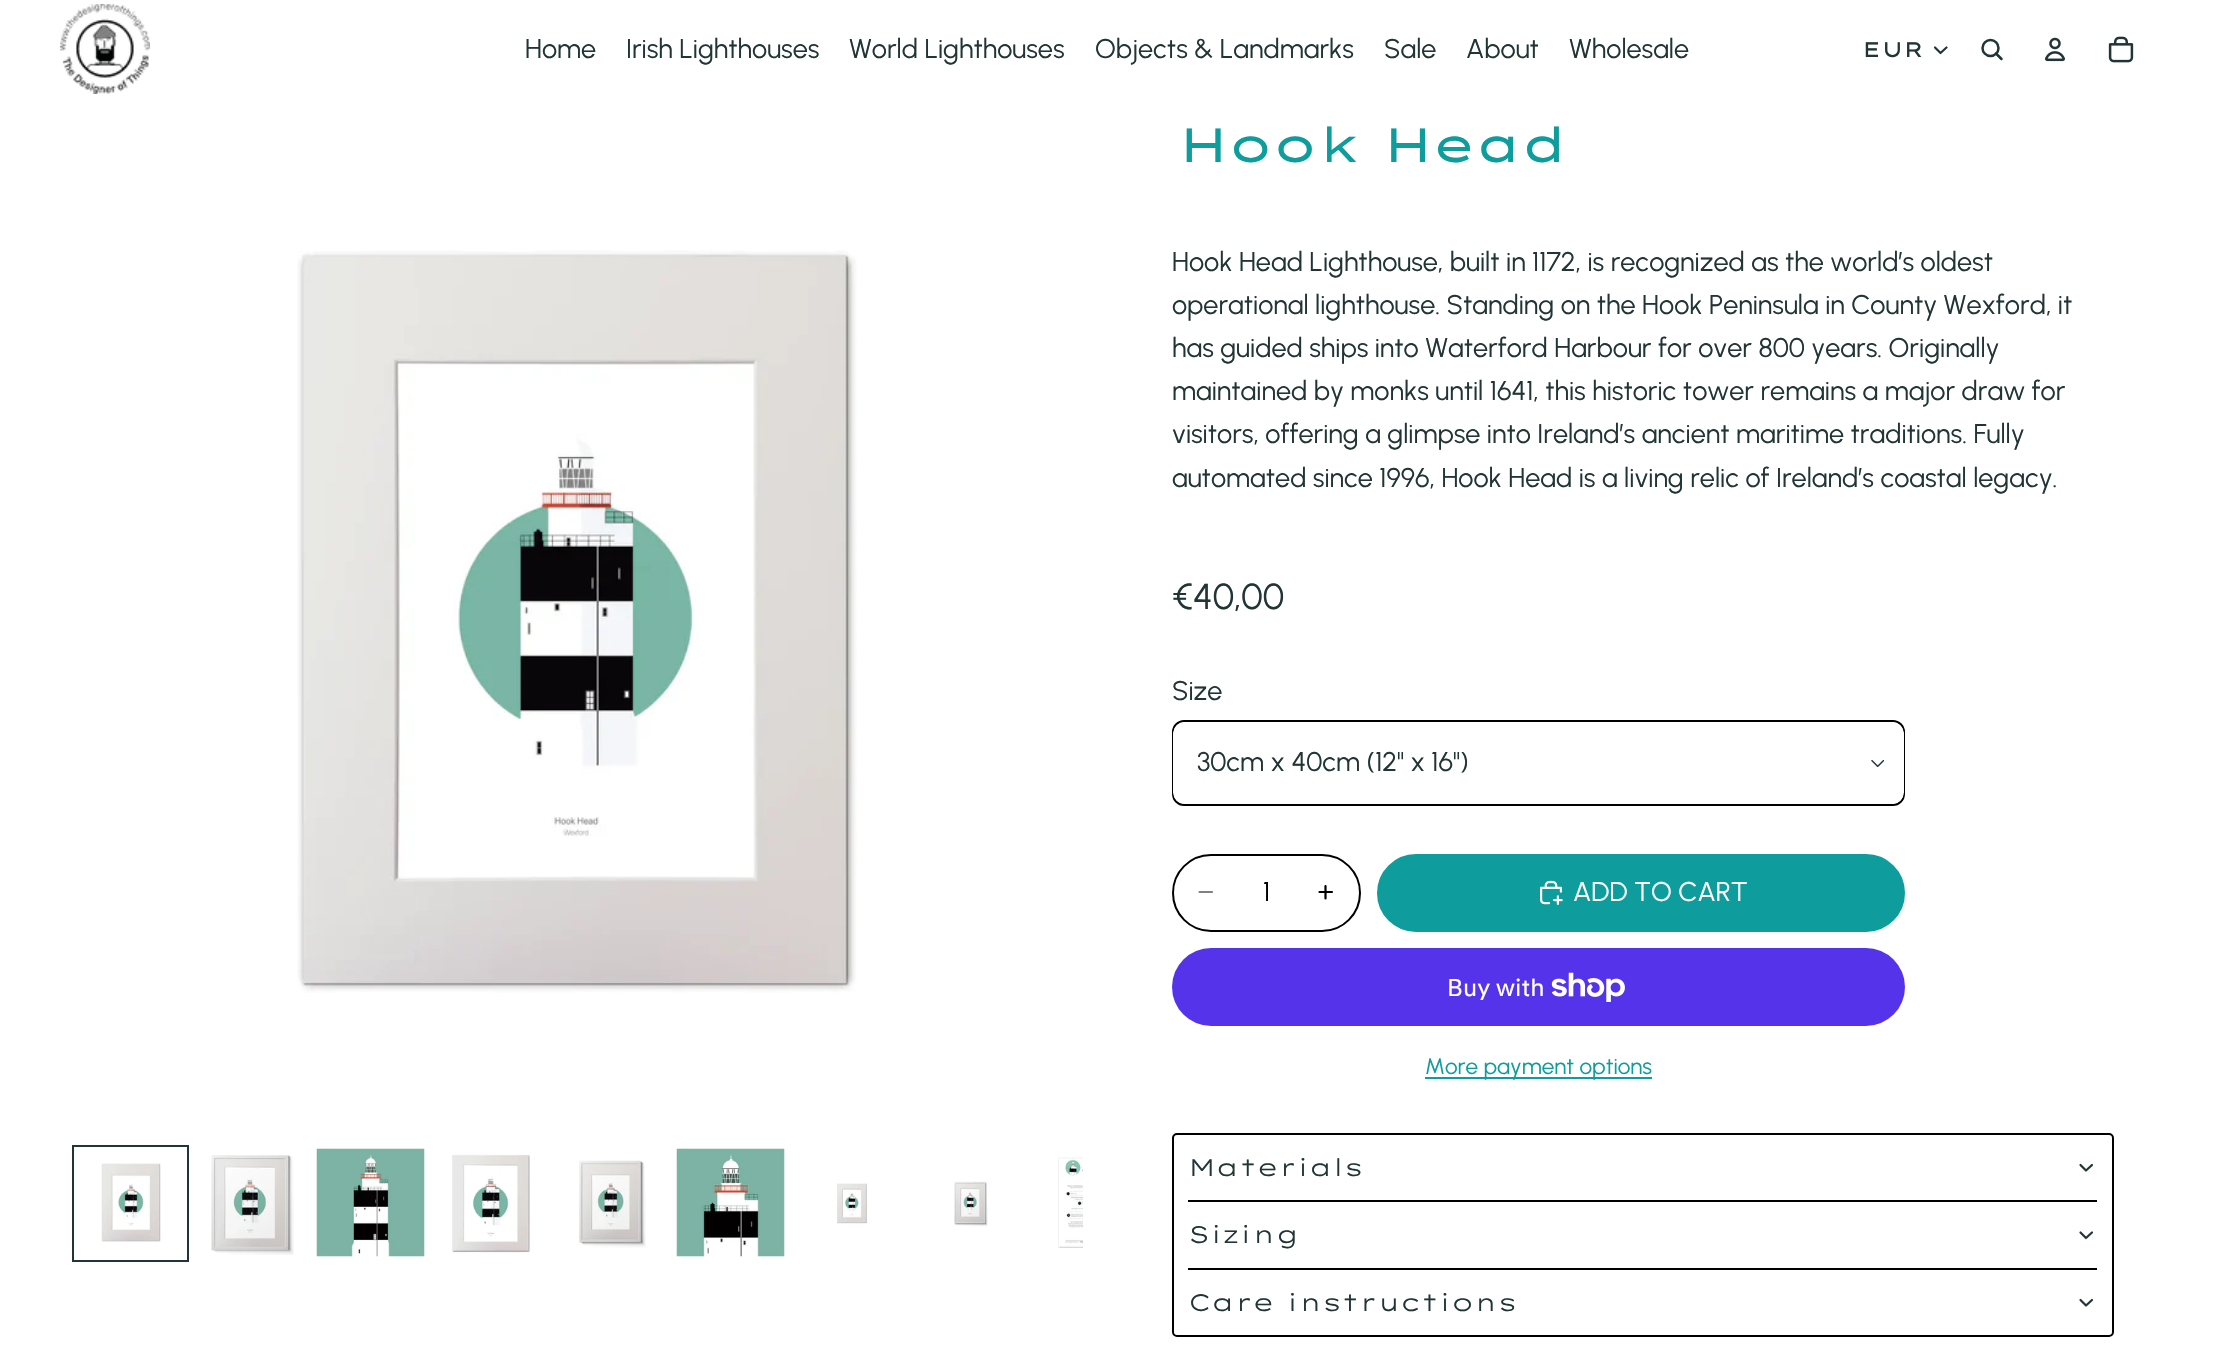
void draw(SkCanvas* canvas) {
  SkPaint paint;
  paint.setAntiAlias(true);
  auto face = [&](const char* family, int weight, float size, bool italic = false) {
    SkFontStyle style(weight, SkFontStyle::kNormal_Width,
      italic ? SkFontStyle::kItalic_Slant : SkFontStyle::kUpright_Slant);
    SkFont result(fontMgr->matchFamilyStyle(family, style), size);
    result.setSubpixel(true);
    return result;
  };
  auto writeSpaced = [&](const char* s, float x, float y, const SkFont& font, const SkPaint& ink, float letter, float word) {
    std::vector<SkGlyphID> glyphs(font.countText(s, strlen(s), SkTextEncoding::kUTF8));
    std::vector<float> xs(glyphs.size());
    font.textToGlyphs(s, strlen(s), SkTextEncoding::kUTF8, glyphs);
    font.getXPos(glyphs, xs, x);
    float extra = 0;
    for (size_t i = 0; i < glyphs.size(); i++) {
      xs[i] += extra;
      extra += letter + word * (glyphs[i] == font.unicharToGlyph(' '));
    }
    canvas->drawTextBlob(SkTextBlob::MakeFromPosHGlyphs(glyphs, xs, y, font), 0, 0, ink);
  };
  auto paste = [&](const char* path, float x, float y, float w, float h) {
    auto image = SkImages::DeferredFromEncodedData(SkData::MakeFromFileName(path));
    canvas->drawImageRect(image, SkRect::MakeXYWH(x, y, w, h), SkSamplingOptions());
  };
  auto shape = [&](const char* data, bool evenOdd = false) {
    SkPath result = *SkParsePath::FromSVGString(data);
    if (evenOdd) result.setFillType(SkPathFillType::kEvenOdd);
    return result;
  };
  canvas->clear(0xffffffff);
  paste("img/1.png", 60, 4, 90, 90);
  paint.setStroke(true);
  paint.setStrokeWidth(2.2f);
  paint.setStrokeCap(SkPaint::kRound_Cap);
  paint.setStrokeJoin(SkPaint::kRound_Join);
  paint.setColor(0xff223535);
  canvas->drawPath(shape("M1946.5 47.5L1940.5 53L1935 47.5"), paint);
  paint.setStrokeWidth(2.5f);
  paint.setStrokeCap(SkPaint::kButt_Cap);
  paint.setStrokeJoin(SkPaint::kMiter_Join);
  canvas->drawCircle(1990.5f, 48, 8, paint);
  paint.setStrokeCap(SkPaint::kRound_Cap);
  paint.setStrokeJoin(SkPaint::kRound_Join);
  canvas->drawPath(shape("M1996 53.5L2001.5 59"), paint);
  paste("img/2.png", 2045, 37, 20, 25);
  paste("img/3.png", 2108, 36, 26, 27);
  paste("img/4.png", 297, 250, 560, 743);
  paste("img/5.png", 101, 1163, 60, 79);
  paint.setStrokeWidth(2);
  paint.setStrokeCap(SkPaint::kButt_Cap);
  paint.setStrokeJoin(SkPaint::kMiter_Join);
  canvas->drawRect(SkRect::MakeXYWH(73, 1146, 115, 115), paint);
  paste("img/6.png", 211, 1155, 83, 100);
  paste("img/7.png", 316, 1148, 109, 109);
  paste("img/8.png", 452, 1154, 78, 99);
  paste("img/9.png", 579, 1160, 67, 88);
  paste("img/10.png", 676, 1148, 109, 109);
  paste("img/11.png", 837, 1183, 31, 41);
  paste("img/12.png", 954, 1181, 34, 46);
  paste("img/13.png", 1058, 1157, 25, 91);
  paint.setColor(0xff000000);
  canvas->drawRoundRect(SkRect::MakeXYWH(1173, 721, 731, 84), 11, 11, paint);
  canvas->save();
  canvas->clipPath(shape("M1184 722H1893C1899 722 1904 727 1904 733V793C1904 799 1899 804 1893 804H1184C1178 804 1173 799 1173 793V733C1173 727 1178 722 1184 722Z"), true);
  paint.setStroke(false);
  paint.setColor(0xffffffff);
  canvas->drawRoundRect(SkRect::MakeXYWH(1173, 722, 731, 82), 12, 12, paint);
  canvas->restore();
  paste("img/14.png", 1871, 760, 13, 7);
  paint.setStroke(true);
  paint.setColor(0xff000000);
  canvas->drawRoundRect(SkRect::MakeXYWH(1173, 855, 187, 76), 38, 38, paint);
  paint.setStrokeWidth(2.2f);
  paint.setStrokeCap(SkPaint::kRound_Cap);
  paint.setColor(0xff808080);
  canvas->drawPath(shape("M1199.5 892H1212"), paint);
  paint.setColor(0xff000000);
  canvas->drawPath(shape("M1319.5 892H1332M1325.5 886V898.5"), paint);
  paint.setStroke(false);
  paint.setColor(0xff0e9c9c);
  canvas->drawRoundRect(SkRect::MakeXYWH(1378.5f, 855.5f, 525, 75), 37.5f, 37.5f, paint);
  paint.setStroke(true);
  paint.setStrokeWidth(3);
  paint.setStrokeCap(SkPaint::kButt_Cap);
  canvas->drawRoundRect(SkRect::MakeXYWH(1378.5f, 855.5f, 525, 75), 37.5f, 37.5f, paint);
  paste("img/15.png", 1540, 880, 23, 25);
  paint.setStroke(false);
  paint.setColor(0xff5433eb);
  canvas->drawRoundRect(SkRect::MakeXYWH(1172, 948, 733, 78), 39, 39, paint);
  paste("img/16.png", 1551, 972, 74, 30);
  paint.setColor(0xff0e9c9c);
  canvas->drawRect(SkRect::MakeXYWH(1425, 1077, 227, 2), paint);
  paint.setStroke(true);
  paint.setStrokeWidth(2);
  paint.setColor(0xff000000);
  canvas->drawRoundRect(SkRect::MakeXYWH(1173, 1134, 940, 202), 4, 4, paint);
  paint.setStrokeWidth(2.2f);
  paint.setStrokeCap(SkPaint::kRound_Cap);
  paint.setStrokeJoin(SkPaint::kRound_Join);
  paint.setColor(0xff223535);
  canvas->drawPath(shape("M2092 1165L2086 1170.5L2080.5 1165"), paint);
  paint.setStroke(false);
  paint.setColor(0xff000000);
  canvas->drawRect(SkRect::MakeXYWH(1188, 1200, 909, 2), paint);
  paint.setStroke(true);
  paint.setColor(0xff223535);
  canvas->drawPath(shape("M2092 1232.5L2086 1238L2080.5 1232.5"), paint);
  paint.setStroke(false);
  paint.setColor(0xff000000);
  canvas->drawRect(SkRect::MakeXYWH(1188, 1268, 909, 2), paint);
  paint.setStroke(true);
  paint.setColor(0xff223535);
  canvas->drawPath(shape("M2092 1300L2086 1305.5L2080.5 1300"), paint);
  auto f0 = face("Urbanist", 400, 27);
  paint.setStroke(false);
  {
    const struct { const char* s; float x, y; } items[] = {
      {"Home", 525, 58},
      {"Irish Lighthouses", 626, 58},
      {"World Lighthouses", 849, 58},
      {"Objects & Landmarks", 1095, 58},
      {"Sale", 1384, 58},
      {"About", 1466, 58},
      {"Wholesale", 1569, 58},
    };
    for (auto [s, x, y] : items) {
      canvas->drawString(s, x, y, f0, paint);
    }
  }
  auto f1 = face("Lexend Zetta", 400, 21);
  canvas->drawString("EUR", 1862, 57, f1, paint);
  auto f2 = face("Lexend Zetta", 400, 48);
  paint.setColor(0xff0e9c9c);
  writeSpaced("Hook Head", 1178, 162, f2, paint, -1.5f, 0);
  paint.setColor(0xff223535);
  {
    const struct { const char* s; float x, y; } items[] = {
      {"Hook Head Lighthouse, built in 1172, is recognized as the world’s oldest", 1172, 271},
      {"operational lighthouse. Standing on the Hook Peninsula in County Wexford, it", 1172, 314},
      {"has guided ships into Waterford Harbour for over 800 years. Originally", 1172, 357},
      {"maintained by monks until 1641, this historic tower remains a major draw for", 1172, 400},
      {"visitors, offering a glimpse into Ireland’s ancient maritime traditions. Fully", 1172, 443},
      {"automated since 1996, Hook Head is a living relic of Ireland’s coastal legacy.", 1172, 487},
    };
    for (auto [s, x, y] : items) {
      canvas->drawString(s, x, y, f0, paint);
    }
  }
  auto f3 = face("Urbanist", 400, 36);
  canvas->drawString("€40,00", 1172, 609, f3, paint);
  canvas->drawString("Size", 1172, 700, f0, paint);
  canvas->drawString("30cm x 40cm (12\" x 16\")", 1197, 771, f0, paint);
  paint.setColor(0xff000000);
  canvas->drawString("1", 1263, 901, f0, paint);
  paint.setColor(0xffffffff);
  canvas->drawString("ADD TO CART", 1573, 901, f0, paint);
  auto f4 = face("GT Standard", 400, 24);
  canvas->drawString("Buy with", 1447, 996, f4, paint);
  auto f5 = face("Urbanist", 400, 22.5f);
  paint.setColor(0xff0e9c9c);
  canvas->drawString("More payment options", 1425, 1074, f5, paint);
  auto f6 = face("Lexend Zetta", 300, 24);
  paint.setColor(0xff223535);
  {
    const struct { const char* s; float x, y; } items[] = {
      {"Materials", 1188, 1176},
      {"Sizing", 1188, 1243},
      {"Care instructions", 1188, 1311},
    };
    for (auto [s, x, y] : items) {
      canvas->drawString(s, x, y, f6, paint);
    }
  }
}
